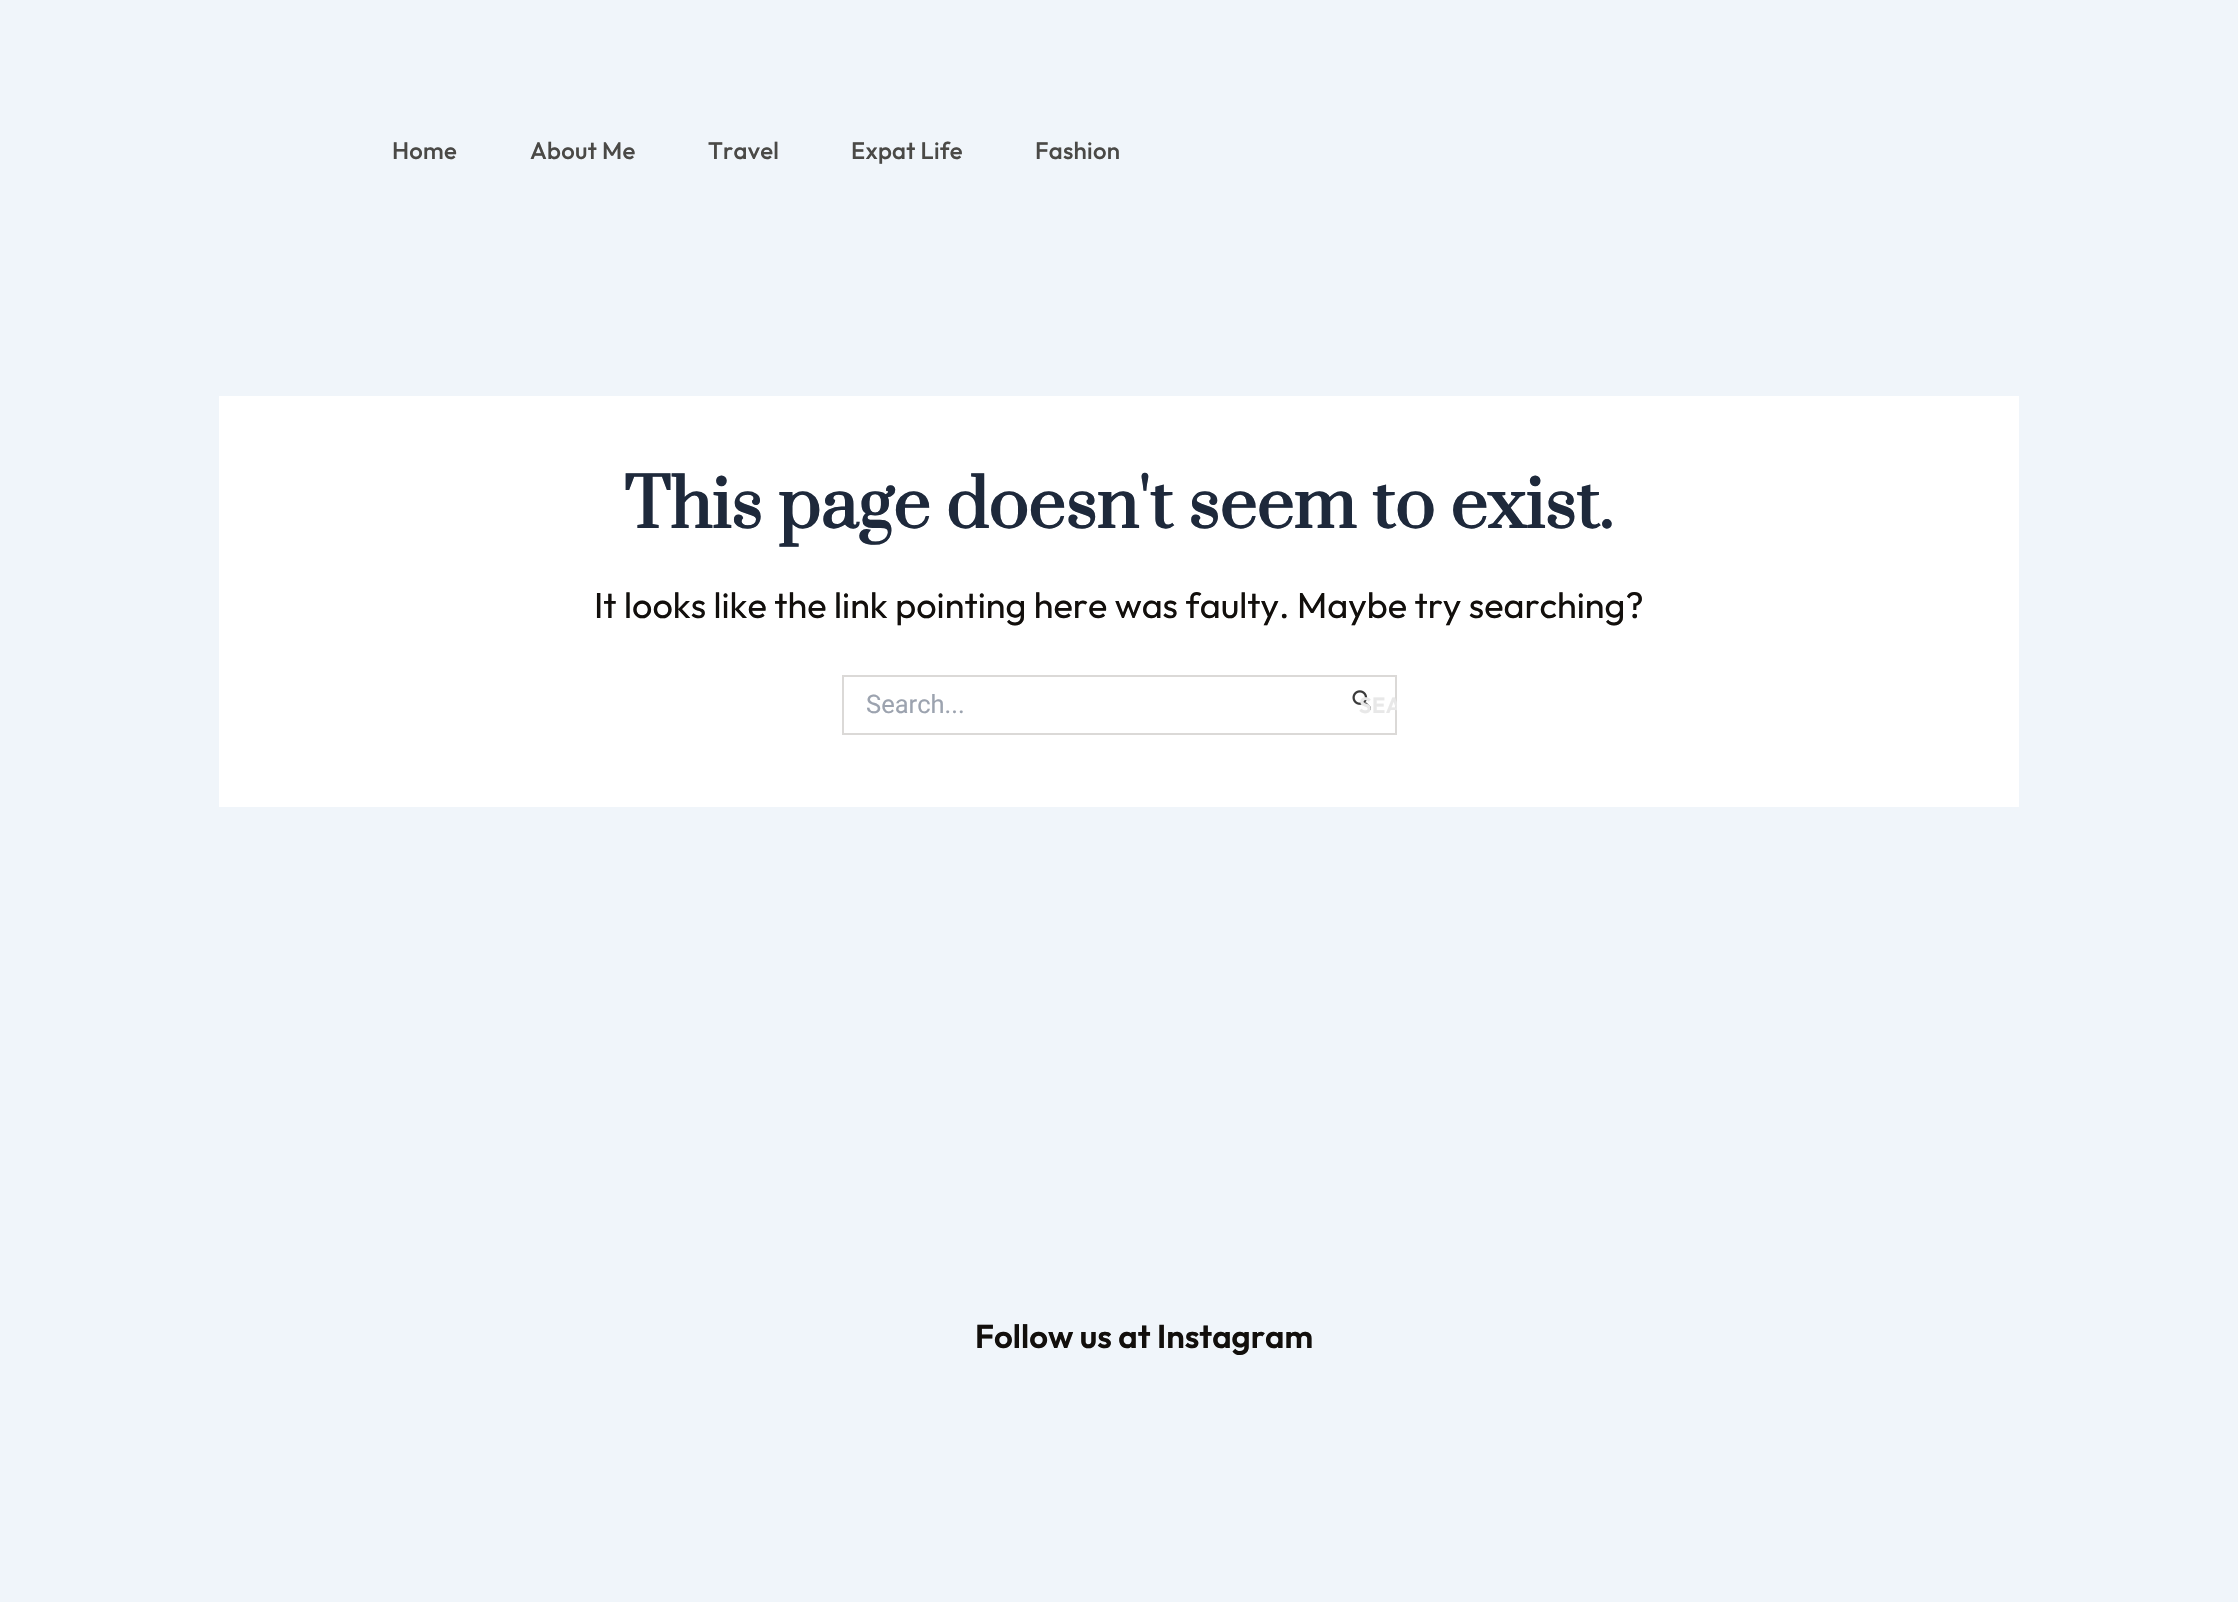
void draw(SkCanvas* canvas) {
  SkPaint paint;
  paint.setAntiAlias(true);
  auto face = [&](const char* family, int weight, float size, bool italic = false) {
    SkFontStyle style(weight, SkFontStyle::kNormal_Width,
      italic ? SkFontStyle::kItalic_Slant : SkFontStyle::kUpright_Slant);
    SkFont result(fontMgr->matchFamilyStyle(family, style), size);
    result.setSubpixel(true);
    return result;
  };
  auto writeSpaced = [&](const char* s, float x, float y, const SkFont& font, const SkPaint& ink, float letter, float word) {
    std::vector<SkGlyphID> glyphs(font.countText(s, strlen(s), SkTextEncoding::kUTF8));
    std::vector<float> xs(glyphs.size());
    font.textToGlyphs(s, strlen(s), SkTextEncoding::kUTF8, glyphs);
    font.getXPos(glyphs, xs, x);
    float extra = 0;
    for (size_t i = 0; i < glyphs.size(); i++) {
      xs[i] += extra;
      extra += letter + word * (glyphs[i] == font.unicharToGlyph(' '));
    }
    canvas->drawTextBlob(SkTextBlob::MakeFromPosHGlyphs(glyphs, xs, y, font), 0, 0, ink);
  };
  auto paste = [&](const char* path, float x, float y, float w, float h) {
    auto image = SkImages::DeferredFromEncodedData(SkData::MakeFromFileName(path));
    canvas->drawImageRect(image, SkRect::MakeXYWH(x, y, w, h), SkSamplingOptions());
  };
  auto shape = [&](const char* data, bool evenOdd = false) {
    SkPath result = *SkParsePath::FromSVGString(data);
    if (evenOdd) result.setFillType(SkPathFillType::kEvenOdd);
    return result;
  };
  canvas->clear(0xfff0f5fa);
  paint.setColor(0xffffffff);
  canvas->drawRect(SkRect::MakeXYWH(219, 396, 1800, 411), paint);
  paint.setStroke(true);
  paint.setStrokeWidth(2);
  paint.setColor(0xffdbd9d7);
  canvas->drawRect(SkRect::MakeXYWH(843, 676, 553, 58), paint);
  paste("img/1.png", 1352, 690, 19, 20);
  auto f0 = face("Outfit", 500, 24);
  paint.setStroke(false);
  paint.setColor(0xff4a4946);
  {
    const struct { const char* s; float x, y; } items[] = {
      {"Home", 392, 159},
      {"About Me", 530, 159},
      {"Travel", 708, 159},
      {"Expat Life", 851, 159},
      {"Fashion", 1035, 159},
    };
    for (auto [s, x, y] : items) {
      writeSpaced(s, x, y, f0, paint, 0.25f, 0);
    }
  }
  auto f1 = face("Prata", 700, 66);
  paint.setColor(0xff1e293b);
  canvas->drawString("This page doesn't seem to exist.", 624, 528, f1, paint);
  auto f2 = face("Outfit", 400, 36);
  paint.setColor(0xff120f0c);
  canvas->drawString("It looks like the link pointing here was faulty. Maybe try searching?", 594, 618, f2, paint);
  auto f3 = face("Heebo", 400, 25.5f);
  paint.setColor(0xff9ca3af);
  canvas->drawString("Search...", 866, 713, f3, paint);
  canvas->save();
  canvas->clipPath(shape("M1332 675H1394C1395.5 675 1397 676.5 1397 678V734C1397 735.5 1395.5 737 1394 737H1332C1330.5 737 1329 735.5 1329 734V678C1329 676.5 1330.5 675 1332 675Z"), true);
  auto f4 = face("Outfit", 600, 22);
  paint.setColor(0xffe8e8e8);
  writeSpaced("SEA", 1359, 713, f4, paint, 0.5f, 0);
  canvas->restore();
  auto f5 = face("Outfit", 600, 33);
  paint.setColor(0xff120f0c);
  canvas->drawString("Follow us at Instagram", 975, 1348, f5, paint);
}
